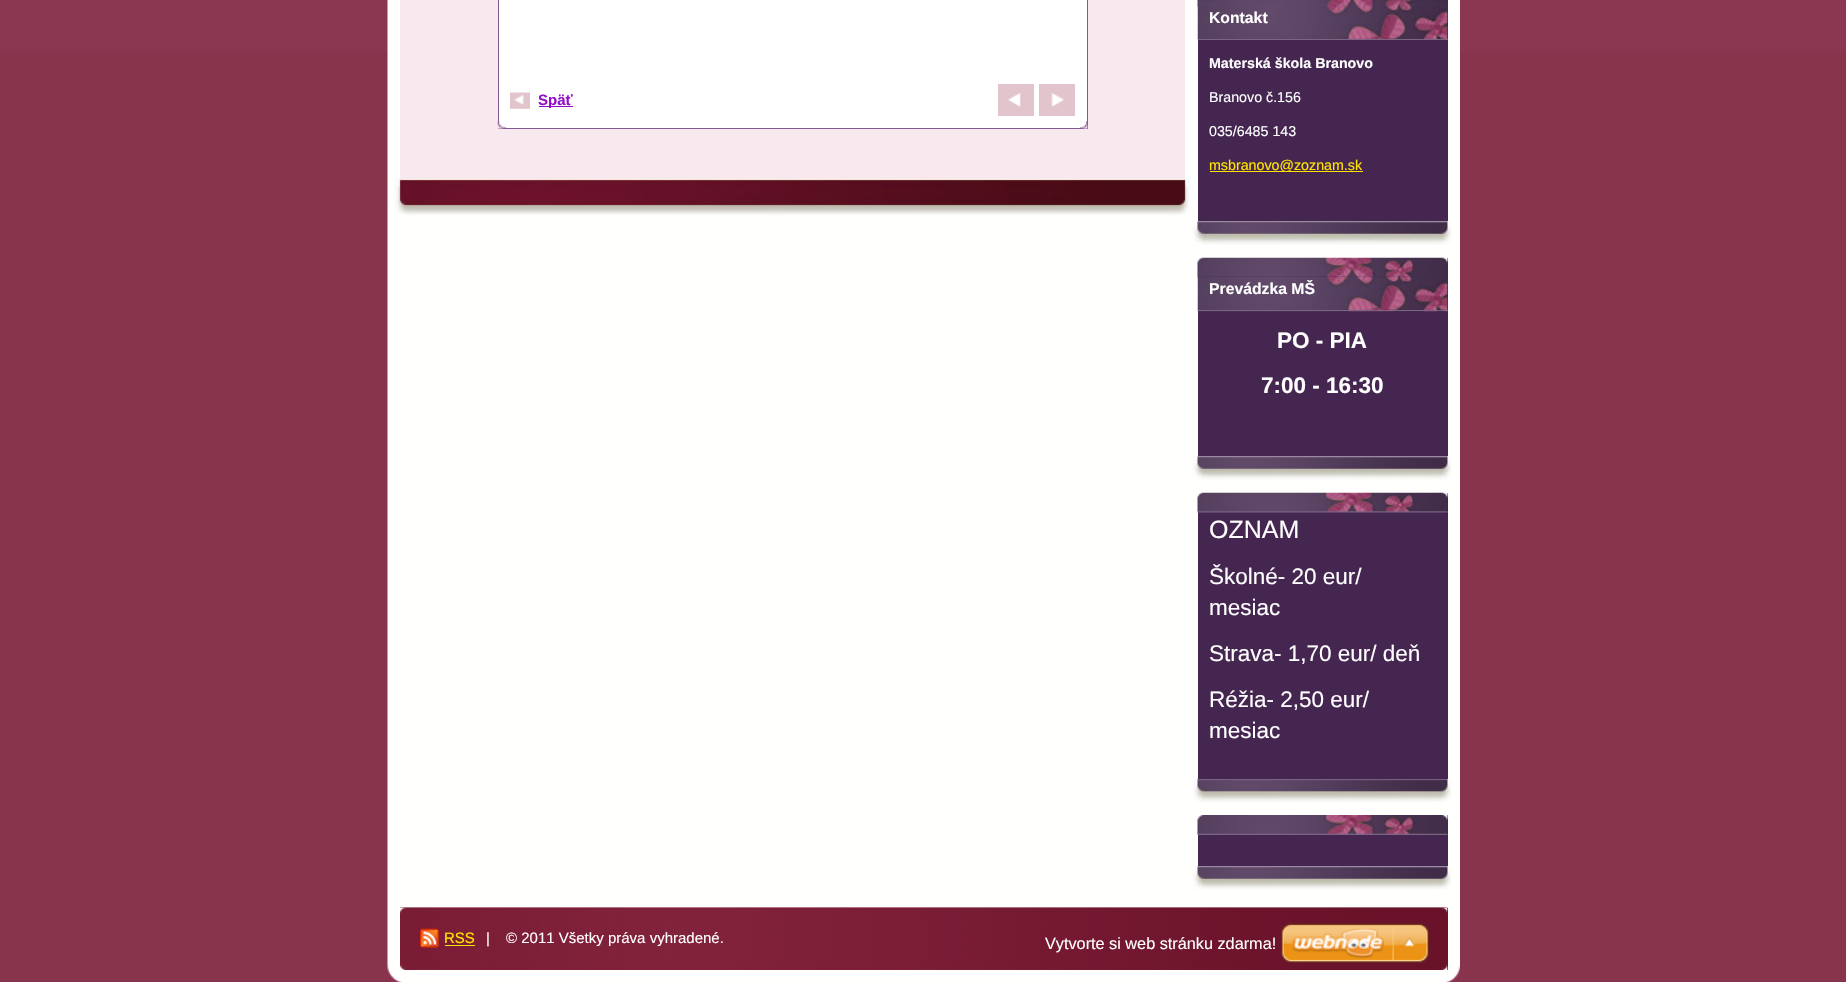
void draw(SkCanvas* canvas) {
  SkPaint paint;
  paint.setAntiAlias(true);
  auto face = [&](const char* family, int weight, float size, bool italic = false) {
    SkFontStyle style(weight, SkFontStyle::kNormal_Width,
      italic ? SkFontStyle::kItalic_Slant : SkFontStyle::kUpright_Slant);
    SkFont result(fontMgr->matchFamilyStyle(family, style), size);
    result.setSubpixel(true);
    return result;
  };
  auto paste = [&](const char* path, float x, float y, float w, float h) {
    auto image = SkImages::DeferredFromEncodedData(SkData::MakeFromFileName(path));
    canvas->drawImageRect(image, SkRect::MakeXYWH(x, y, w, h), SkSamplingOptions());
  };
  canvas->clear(0xff88344c);
  paint.setColor(0xff8c3751);
  canvas->drawRect(SkRect::MakeXYWH(0, 0, 1846, 51), paint);
  paste("img/1.png", 387, 0, 1073, 982);
  paste("img/2.png", 394, 178, 797, 37);
  paint.setColor(0xfff7e9ed);
  canvas->drawRect(SkRect::MakeXYWH(400, 0, 785, 179), paint);
  paint.setColor(0xffffffff);
  canvas->drawRect(SkRect::MakeXYWH(498.5f, -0.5f, 589, 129), paint);
  paint.setStroke(true);
  paint.setStrokeWidth(1);
  paint.setColor(0xff825a92);
  canvas->drawRect(SkRect::MakeXYWH(498.5f, -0.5f, 589, 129), paint);
  paste("img/3.png", 497, 121, 10, 8);
  paste("img/4.png", 1080, 121, 8, 8);
  paste("img/5.png", 510, 92, 20, 17);
  paint.setStroke(false);
  paint.setColor(0xff9310c7);
  canvas->drawRect(SkRect::MakeXYWH(539, 106, 34, 1), paint);
  paint.setColor(0xffe1c4cc);
  canvas->drawRect(SkRect::MakeXYWH(998, 84, 36, 32), paint);
  paste("img/6.png", 1008, 92, 13, 15);
  canvas->drawRect(SkRect::MakeXYWH(1039, 84, 36, 32), paint);
  paste("img/7.png", 1051, 92, 13, 15);
  paste("img/8.png", 1192, 221, 260, 24);
  paint.setColor(0xff442650);
  canvas->drawRect(SkRect::MakeXYWH(1198, 0, 250, 221), paint);
  paste("img/9.png", 1197, 0, 251, 7);
  paint.setColor(0xff412b49);
  canvas->drawRect(SkRect::MakeXYWH(1447, 5, 1, 34), paint);
  paste("img/10.png", 1197, 5, 251, 35);
  paint.setColor(0xff7b6584);
  canvas->drawRect(SkRect::MakeXYWH(1198, 39, 250, 1), paint);
  paint.setColor(0xffffe400);
  canvas->drawRect(SkRect::MakeXYWH(1210, 171, 153, 1), paint);
  paste("img/8.png", 1192, 456, 260, 24);
  paint.setColor(0xff442650);
  canvas->drawRect(SkRect::MakeXYWH(1198, 258, 250, 198), paint);
  paste("img/11.png", 1197, 257, 251, 21);
  paint.setColor(0xff412b49);
  canvas->drawRect(SkRect::MakeXYWH(1198, 276, 250, 34), paint);
  paste("img/12.png", 1197, 276, 251, 36);
  paint.setColor(0xff7b6584);
  canvas->drawRect(SkRect::MakeXYWH(1198, 310, 250, 1), paint);
  paste("img/13.png", 1192, 778, 260, 24);
  paint.setColor(0xff442650);
  canvas->drawRect(SkRect::MakeXYWH(1198, 493, 250, 286), paint);
  paste("img/11.png", 1197, 492, 251, 21);
  paste("img/14.png", 1192, 866, 260, 24);
  canvas->drawRect(SkRect::MakeXYWH(1198, 815, 250, 51), paint);
  paste("img/15.png", 1197, 815, 251, 20);
  paint.setColor(0xff6a132a);
  canvas->drawRect(SkRect::MakeXYWH(1447, 908, 1, 62), paint);
  paste("img/16.png", 400, 907, 1048, 63);
  paste("img/17.png", 400, 964, 1048, 6);
  paste("img/18.png", 400, 907, 1048, 6);
  paste("img/19.png", 420, 928, 19, 20);
  paint.setColor(0xffffe400);
  canvas->drawRect(SkRect::MakeXYWH(445, 945, 30, 1), paint);
  paste("img/20.png", 1281, 923, 148, 40);
  auto f0 = face("Liberation Sans", 700, 15);
  paint.setColor(0xff9310c7);
  canvas->drawString("Späť", 538, 105, f0, paint);
  auto f1 = face("Liberation Sans", 700, 15.75f);
  paint.setColor(0xffffffff);
  canvas->drawString("Kontakt", 1209, 23, f1, paint);
  auto f2 = face("Liberation Sans", 700, 14.25f);
  canvas->drawString("Materská škola Branovo", 1209, 68, f2, paint);
  auto f3 = face("Liberation Sans", 400, 14.25f);
  canvas->drawString("Branovo č.156", 1209, 102, f3, paint);
  canvas->drawString("035/6485 143", 1209, 136, f3, paint);
  paint.setColor(0xffffe400);
  canvas->drawString("msbranovo@zoznam.sk", 1209, 170, f3, paint);
  paint.setColor(0xffffffff);
  canvas->drawString("Prevádzka MŠ", 1209, 294, f1, paint);
  auto f4 = face("Liberation Sans", 700, 22.5f);
  canvas->drawString("PO - PIA", 1277, 348, f4, paint);
  canvas->drawString("7:00 - 16:30", 1261, 393, f4, paint);
  auto f5 = face("Liberation Sans", 400, 25);
  canvas->drawString("OZNAM", 1209, 538, f5, paint);
  auto f6 = face("Liberation Sans", 400, 22.5f);
  {
    const struct { const char* s; float x, y; } items[] = {
      {"Školné- 20 eur/", 1209, 584},
      {"mesiac", 1209, 615},
      {"Strava- 1,70 eur/ deň", 1209, 661},
      {"Réžia- 2,50 eur/", 1209, 707},
      {"mesiac", 1209, 738},
    };
    for (auto [s, x, y] : items) {
      canvas->drawString(s, x, y, f6, paint);
    }
  }
  auto f7 = face("Liberation Sans", 400, 15);
  paint.setColor(0xffffe400);
  canvas->drawString("RSS", 444, 943, f7, paint);
  paint.setColor(0xffffffff);
  canvas->drawString("|", 486, 943, f7, paint);
  canvas->drawString("© 2011 Všetky práva vyhradené.", 506, 943, f7, paint);
  auto f8 = face("Liberation Sans", 400, 16.25f);
  canvas->drawString("Vytvorte si web stránku zdarma!", 1045, 949, f8, paint);
}
